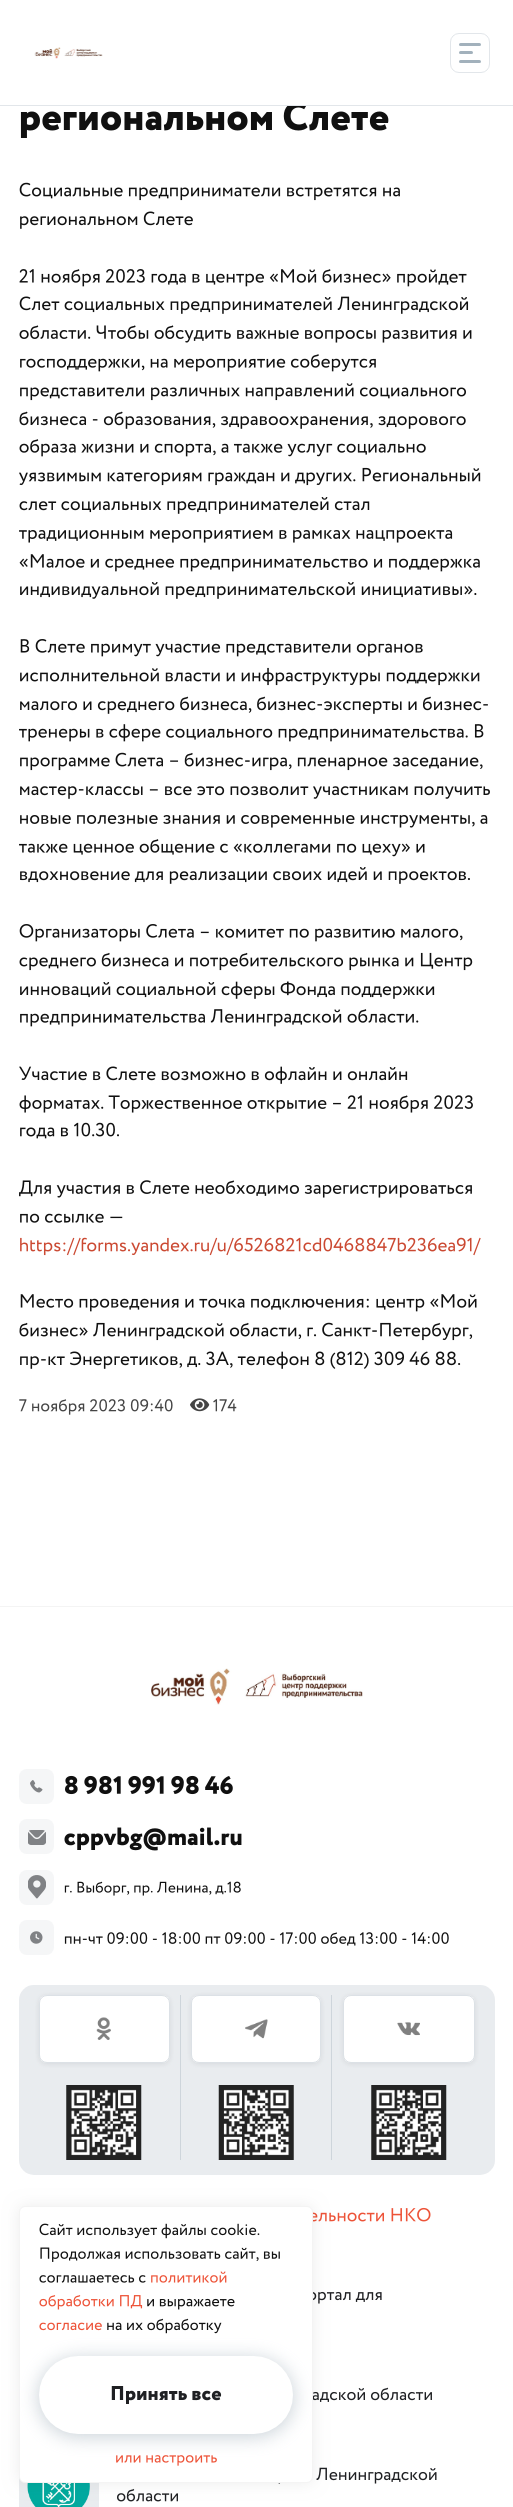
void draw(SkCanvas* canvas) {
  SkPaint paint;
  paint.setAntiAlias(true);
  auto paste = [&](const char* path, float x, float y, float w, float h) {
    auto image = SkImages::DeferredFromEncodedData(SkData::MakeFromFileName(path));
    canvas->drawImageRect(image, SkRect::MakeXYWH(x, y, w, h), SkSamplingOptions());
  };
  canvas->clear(0xffffffff);
  paint.setColor(0xffe2e6ea);
  canvas->drawRect(SkRect::MakeXYWH(0, 105, 513, 1), paint);
  paste("img/1.png", 34, 47, 69, 12);
  paint.setStroke(true);
  paint.setStrokeWidth(1);
  canvas->drawRoundRect(SkRect::MakeXYWH(450.5f, 33.5f, 39, 39), 8.5f, 8.5f, paint);
  paint.setStroke(false);
  paint.setColor(0xffa2b1bc);
  canvas->drawRoundRect(SkRect::MakeXYWH(459, 43, 22, 3), 1.5f, 1.5f, paint);
  canvas->drawRoundRect(SkRect::MakeXYWH(459, 51, 14, 3), 1.5f, 1.5f, paint);
  canvas->drawRoundRect(SkRect::MakeXYWH(459, 60, 22, 3), 1.5f, 1.5f, paint);
  paste("img/2.png", 20, 106, 369, 32);
  paste("img/3.png", 19, 182, 381, 19);
  paste("img/4.png", 20, 211, 173, 18);
  paste("img/5.png", 19, 269, 448, 18);
  paste("img/6.png", 19, 296, 450, 18);
  paste("img/7.png", 19, 325, 453, 18);
  paste("img/8.png", 20, 354, 356, 18);
  paste("img/9.png", 20, 383, 446, 18);
  paste("img/10.png", 19, 411, 447, 18);
  paste("img/11.png", 19, 439, 407, 18);
  paste("img/12.png", 19, 467, 462, 19);
  paste("img/13.png", 19, 497, 351, 17);
  paste("img/14.png", 19, 530, 434, 13);
  paste("img/15.png", 19, 554, 461, 18);
  paste("img/16.png", 20, 582, 457, 17);
  paste("img/17.png", 20, 639, 403, 18);
  paste("img/18.png", 20, 667, 460, 19);
  paste("img/19.png", 20, 696, 468, 18);
  paste("img/20.png", 19, 724, 465, 18);
  paste("img/21.png", 20, 752, 463, 19);
  paste("img/22.png", 20, 786, 470, 13);
  paste("img/23.png", 20, 815, 468, 13);
  paste("img/24.png", 19, 839, 406, 18);
  paste("img/25.png", 20, 867, 450, 17);
  paste("img/26.png", 19, 924, 444, 18);
  paste("img/27.png", 19, 952, 454, 19);
  paste("img/28.png", 20, 981, 415, 18);
  paste("img/29.png", 20, 1009, 399, 18);
  paste("img/30.png", 19, 1066, 389, 18);
  paste("img/31.png", 19, 1095, 454, 18);
  paste("img/32.png", 20, 1122, 99, 17);
  paste("img/33.png", 19, 1180, 453, 18);
  paste("img/34.png", 20, 1213, 103, 10);
  paste("img/35.png", 20, 1237, 461, 19);
  paste("img/36.png", 20, 1294, 457, 18);
  paste("img/37.png", 19, 1322, 454, 19);
  paste("img/38.png", 20, 1351, 441, 18);
  paste("img/39.png", 19, 1399, 154, 16);
  paste("img/40.png", 190, 1398, 20, 14);
  paste("img/41.png", 213, 1399, 24, 13);
  paint.setColor(0xfff4f4f4);
  canvas->drawRect(SkRect::MakeXYWH(0, 1606, 513, 1), paint);
  paste("img/42.png", 151, 1668, 212, 37);
  paint.setColor(0xfff5f6f7);
  canvas->drawRoundRect(SkRect::MakeXYWH(19, 1769, 35, 35), 8, 8, paint);
  paste("img/43.png", 30, 1780, 13, 13);
  paste("img/44.png", 65, 1775, 168, 20);
  canvas->drawRoundRect(SkRect::MakeXYWH(19, 1819, 35, 35), 8, 8, paint);
  paste("img/45.png", 28, 1830, 18, 15);
  paste("img/46.png", 64, 1827, 178, 24);
  canvas->drawRoundRect(SkRect::MakeXYWH(19, 1870, 35, 35), 8, 8, paint);
  paste("img/47.png", 28, 1875, 18, 24);
  paste("img/48.png", 64, 1881, 177, 15);
  canvas->drawRoundRect(SkRect::MakeXYWH(19, 1920, 35, 35), 8, 8, paint);
  paste("img/49.png", 30, 1931, 13, 13);
  paste("img/50.png", 64, 1932, 385, 14);
  paint.setColor(0xffe9ecef);
  canvas->drawRoundRect(SkRect::MakeXYWH(19, 1985, 476, 190), 15, 15, paint);
  paint.setColor(0xffced5db);
  canvas->drawRect(SkRect::MakeXYWH(180, 1995, 1, 165), paint);
  paint.setColor(0x1a1f2023);
  paint.setMaskFilter(SkMaskFilter::MakeBlur(kNormal_SkBlurStyle, 2.5f));
  canvas->drawRoundRect(SkRect::MakeXYWH(39, 1996, 131, 68), 8, 8, paint);
  paint.setMaskFilter(nullptr);
  paint.setColor(0xffffffff);
  canvas->drawRoundRect(SkRect::MakeXYWH(39, 1995, 131, 68), 8, 8, paint);
  paint.setStroke(true);
  paint.setColor(0x4d8b9dab);
  canvas->drawRoundRect(SkRect::MakeXYWH(39.5f, 1995.5f, 130, 67), 7.5f, 7.5f, paint);
  paste("img/51.png", 96, 2017, 15, 23);
  paste("img/52.png", 66, 2085, 76, 75);
  paint.setStroke(false);
  paint.setColor(0xffced5db);
  canvas->drawRect(SkRect::MakeXYWH(331, 1995, 1, 165), paint);
  paint.setColor(0x1a1f2023);
  paint.setMaskFilter(SkMaskFilter::MakeBlur(kNormal_SkBlurStyle, 2.5f));
  canvas->drawRoundRect(SkRect::MakeXYWH(191, 1996, 130, 68), 8, 8, paint);
  paint.setMaskFilter(nullptr);
  paint.setColor(0xffffffff);
  canvas->drawRoundRect(SkRect::MakeXYWH(191, 1995, 130, 68), 8, 8, paint);
  paint.setStroke(true);
  paint.setColor(0x4d8b9dab);
  canvas->drawRoundRect(SkRect::MakeXYWH(191.5f, 1995.5f, 129, 67), 7.5f, 7.5f, paint);
  paste("img/53.png", 245, 2019, 23, 20);
  paste("img/54.png", 218, 2085, 76, 75);
  paint.setStroke(false);
  paint.setColor(0x1a1f2023);
  paint.setMaskFilter(SkMaskFilter::MakeBlur(kNormal_SkBlurStyle, 2.5f));
  canvas->drawRoundRect(SkRect::MakeXYWH(343, 1996, 132, 68), 8, 8, paint);
  paint.setMaskFilter(nullptr);
  paint.setColor(0xffffffff);
  canvas->drawRoundRect(SkRect::MakeXYWH(343, 1995, 132, 68), 8, 8, paint);
  paint.setStroke(true);
  paint.setColor(0x4d8b9dab);
  canvas->drawRoundRect(SkRect::MakeXYWH(343.5f, 1995.5f, 131, 67), 7.5f, 7.5f, paint);
  paste("img/55.png", 397, 2022, 23, 14);
  paste("img/56.png", 371, 2085, 76, 75);
  paste("img/57.png", 313, 2207, 118, 15);
  paste("img/58.png", 313, 2291, 69, 13);
  paste("img/59.png", 313, 2387, 119, 15);
  paint.setStroke(false);
  paint.setColor(0xffe9ecef);
  canvas->drawRect(SkRect::MakeXYWH(19, 2477, 80, 30), paint);
  paste("img/60.png", 27, 2483, 63, 24);
  paste("img/61.png", 278, 2467, 159, 17);
  paste("img/62.png", 117, 2488, 61, 14);
  paint.setColor(0x12000000);
  paint.setMaskFilter(SkMaskFilter::MakeBlur(kNormal_SkBlurStyle, 7.5f));
  canvas->drawRoundRect(SkRect::MakeXYWH(19, 2206, 294, 277), 6, 6, paint);
  paint.setMaskFilter(nullptr);
  paint.setColor(0xffffffff);
  canvas->drawRoundRect(SkRect::MakeXYWH(19.5f, 2206.5f, 293, 276), 5.5f, 5.5f, paint);
  paint.setStroke(true);
  paint.setColor(0xfff4f4f4);
  canvas->drawRoundRect(SkRect::MakeXYWH(19.5f, 2206.5f, 293, 276), 5.5f, 5.5f, paint);
  paste("img/63.png", 39, 2223, 221, 16);
  paste("img/64.png", 40, 2247, 240, 15);
  paste("img/65.png", 39, 2275, 107, 8);
  paste("img/66.png", 151, 2271, 76, 12);
  paste("img/67.png", 39, 2295, 104, 15);
  paste("img/68.png", 147, 2298, 88, 12);
  paste("img/69.png", 39, 2322, 63, 9);
  paste("img/70.png", 107, 2318, 115, 16);
  paint.setStroke(false);
  paint.setColor(0x808b9dab);
  paint.setMaskFilter(SkMaskFilter::MakeBlur(kNormal_SkBlurStyle, 10));
  canvas->drawRoundRect(SkRect::MakeXYWH(39, 2359, 254, 77), 38.5f, 38.5f, paint);
  paint.setMaskFilter(nullptr);
  paint.setColor(0xffffffff);
  canvas->drawRoundRect(SkRect::MakeXYWH(39, 2356, 254, 78), 39, 39, paint);
  paste("img/71.png", 111, 2386, 111, 18);
  paste("img/72.png", 116, 2455, 101, 11);
}
